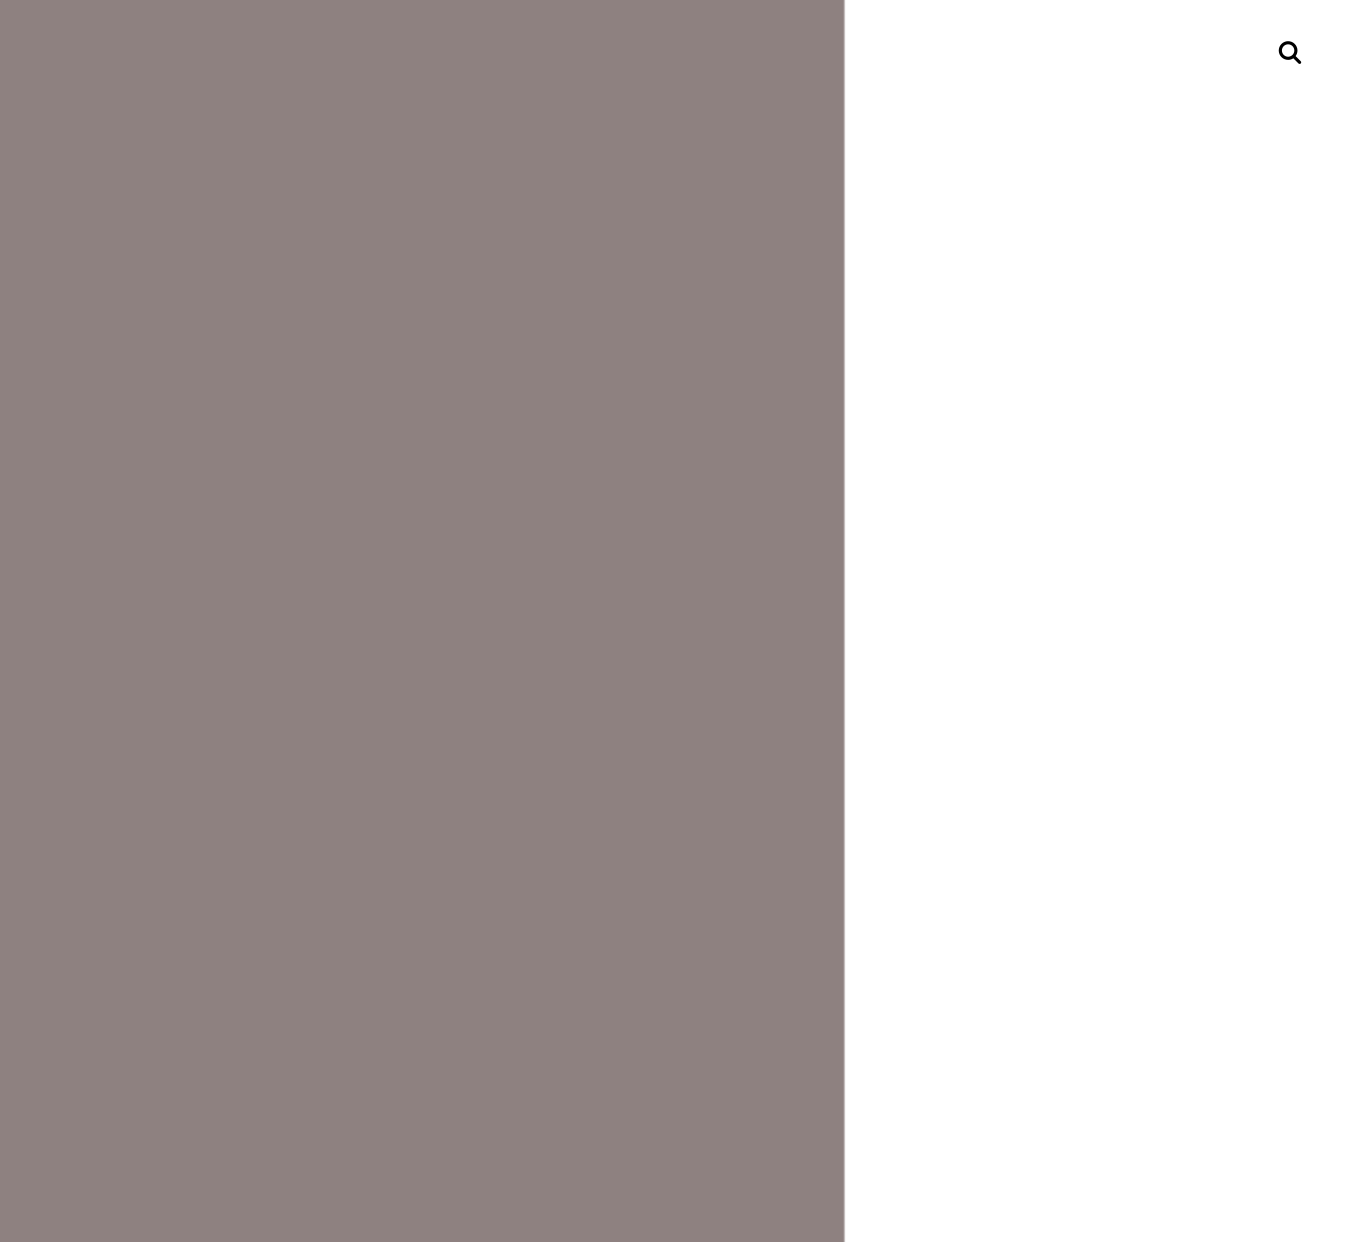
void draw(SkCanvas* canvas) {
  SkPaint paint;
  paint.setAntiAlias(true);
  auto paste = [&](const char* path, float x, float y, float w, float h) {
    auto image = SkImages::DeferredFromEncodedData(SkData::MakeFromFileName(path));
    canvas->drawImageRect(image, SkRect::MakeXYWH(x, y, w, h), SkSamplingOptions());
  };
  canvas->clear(0xffffffff);
  paste("img/1.png", 0, 0, 846, 1242);
  paste("img/2.png", 1278, 41, 24, 23);
}
